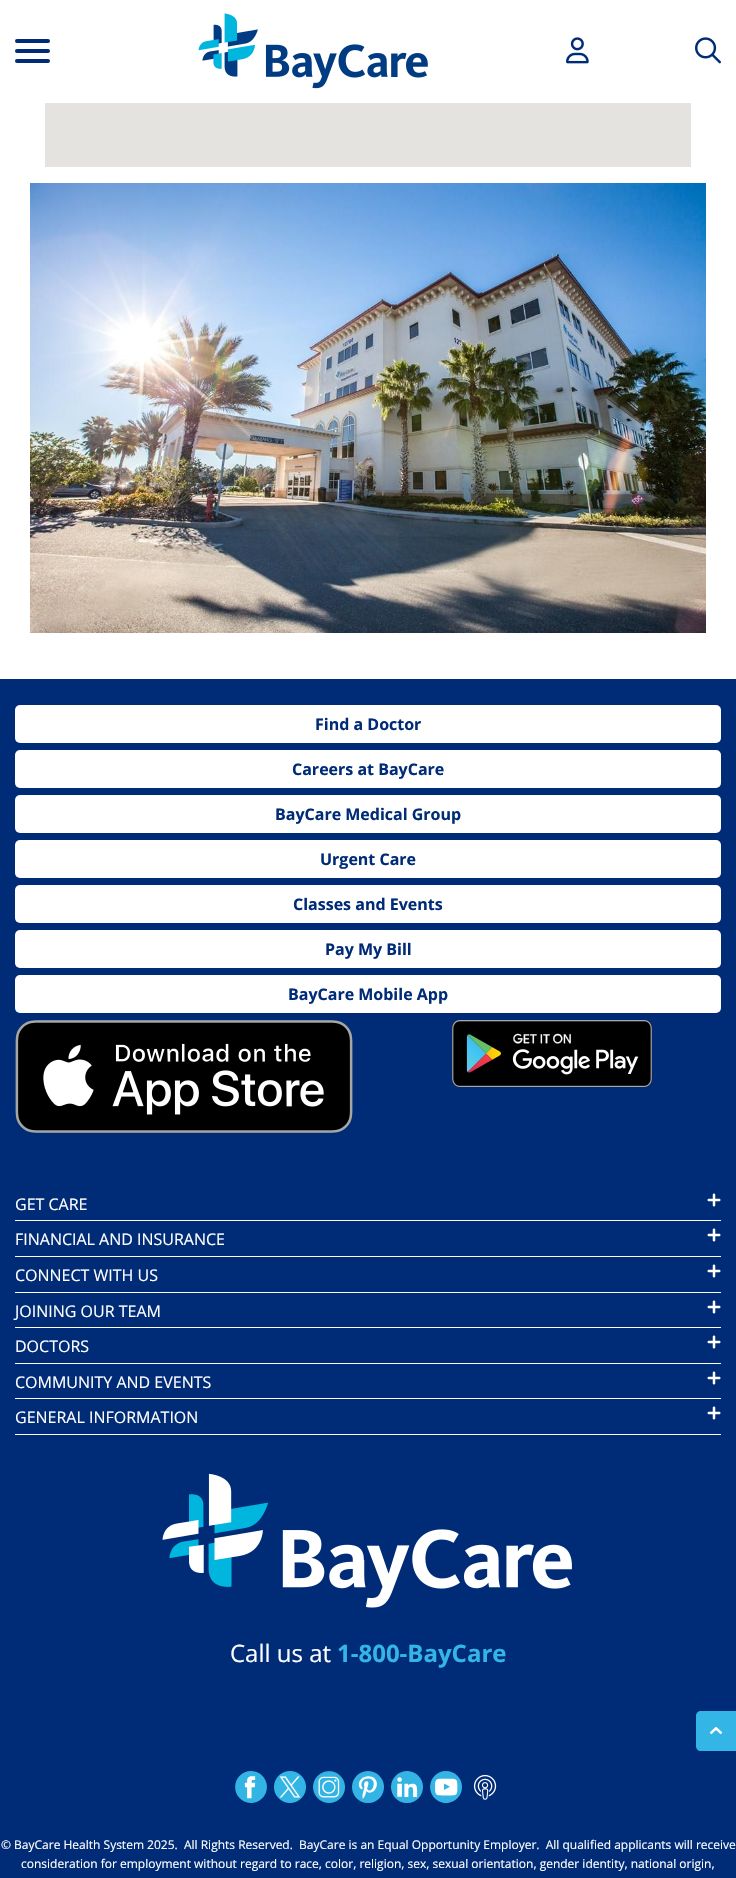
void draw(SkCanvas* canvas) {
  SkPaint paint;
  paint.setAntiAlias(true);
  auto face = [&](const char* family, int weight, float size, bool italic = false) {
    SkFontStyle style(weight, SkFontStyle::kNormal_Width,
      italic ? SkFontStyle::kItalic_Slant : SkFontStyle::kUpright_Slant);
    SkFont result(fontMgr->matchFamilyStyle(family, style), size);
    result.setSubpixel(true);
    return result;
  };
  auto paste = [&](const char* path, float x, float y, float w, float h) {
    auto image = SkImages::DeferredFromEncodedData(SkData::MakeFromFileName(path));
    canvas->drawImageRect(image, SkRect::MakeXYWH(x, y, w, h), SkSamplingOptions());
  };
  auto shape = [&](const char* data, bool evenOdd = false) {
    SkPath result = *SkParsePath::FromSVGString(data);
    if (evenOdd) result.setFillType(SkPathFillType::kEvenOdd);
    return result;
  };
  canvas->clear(0xffffffff);
  paint.setColor(0xff002c77);
  canvas->drawRoundRect(SkRect::MakeXYWH(15, 39, 35, 4), 2, 2, paint);
  canvas->drawRoundRect(SkRect::MakeXYWH(15, 49, 35, 4), 2, 2, paint);
  canvas->drawRoundRect(SkRect::MakeXYWH(15, 59, 35, 4), 2, 2, paint);
  paste("img/1.png", 198, 13, 230, 76);
  paste("img/2.png", 566, 37, 23, 27);
  paste("img/3.png", 695, 37, 26, 27);
  paint.setColor(0xffe5e3df);
  canvas->drawRect(SkRect::MakeXYWH(45, 103, 646, 64), paint);
  paste("img/4.png", 30, 183, 676, 450);
  paint.setColor(0xff002c77);
  canvas->drawRect(SkRect::MakeXYWH(0, 679, 736, 1199), paint);
  paint.setColor(0xffffffff);
  canvas->drawRoundRect(SkRect::MakeXYWH(15, 705, 706, 38), 5, 5, paint);
  canvas->drawRoundRect(SkRect::MakeXYWH(15, 750, 706, 38), 5, 5, paint);
  canvas->drawRoundRect(SkRect::MakeXYWH(15, 795, 706, 38), 5, 5, paint);
  canvas->drawRoundRect(SkRect::MakeXYWH(15, 840, 706, 38), 5, 5, paint);
  canvas->drawRoundRect(SkRect::MakeXYWH(15, 885, 706, 38), 5, 5, paint);
  canvas->drawRoundRect(SkRect::MakeXYWH(15, 930, 706, 38), 5, 5, paint);
  canvas->drawRoundRect(SkRect::MakeXYWH(15, 975, 706, 38), 5, 5, paint);
  paste("img/5.png", 15, 1020, 338, 113);
  paste("img/6.png", 452, 1020, 200, 67);
  canvas->drawRect(SkRect::MakeXYWH(15, 1220, 706, 1), paint);
  paste("img/7.png", 707, 1193, 14, 14);
  canvas->drawRect(SkRect::MakeXYWH(15, 1256, 706, 1), paint);
  paste("img/7.png", 707, 1228, 14, 14);
  canvas->drawRect(SkRect::MakeXYWH(15, 1292, 706, 1), paint);
  paste("img/7.png", 707, 1264, 14, 14);
  canvas->drawRect(SkRect::MakeXYWH(15, 1327, 706, 1), paint);
  paste("img/7.png", 707, 1300, 14, 14);
  canvas->drawRect(SkRect::MakeXYWH(15, 1363, 706, 1), paint);
  paste("img/7.png", 707, 1335, 14, 14);
  canvas->drawRect(SkRect::MakeXYWH(15, 1398, 706, 1), paint);
  paste("img/7.png", 707, 1371, 14, 14);
  canvas->drawRect(SkRect::MakeXYWH(15, 1434, 706, 1), paint);
  paste("img/7.png", 707, 1406, 14, 14);
  paste("img/8.png", 162, 1473, 410, 135);
  paste("img/9.png", 235, 1771, 32, 32);
  paste("img/10.png", 274, 1771, 32, 32);
  paste("img/11.png", 313, 1771, 32, 32);
  paste("img/12.png", 352, 1771, 32, 32);
  paste("img/13.png", 391, 1771, 32, 32);
  paste("img/14.png", 430, 1771, 32, 32);
  paste("img/15.png", 473, 1774, 24, 26);
  paint.setColor(0xff33b5e5);
  canvas->drawPath(shape("M701 1711H736V1751H701C698 1751 696 1749 696 1746V1716C696 1713 698 1711 701 1711Z"), paint);
  paste("img/16.png", 710, 1727, 12, 7);
  auto f0 = face("Open Sans", 700, 16);
  paint.setColor(0xff002c77);
  {
    const struct { const char* s; float x, y; } items[] = {
      {"Find a Doctor", 315, 730},
      {"Careers at BayCare", 292, 775},
      {"BayCare Medical Group", 275, 820},
      {"Urgent Care", 320, 865},
      {"Classes and Events", 293, 910},
      {"Pay My Bill", 325, 955},
      {"BayCare Mobile App", 288, 1000},
    };
    for (auto [s, x, y] : items) {
      canvas->drawString(s, x, y, f0, paint);
    }
  }
  auto f1 = face("Open Sans", 400, 16);
  paint.setColor(0xffffffff);
  {
    const struct { const char* s; float x, y; } items[] = {
      {"GET CARE", 15, 1210},
      {"FINANCIAL AND INSURANCE", 15, 1245},
      {"CONNECT WITH US", 15, 1281},
      {"JOINING OUR TEAM", 15, 1317},
      {"DOCTORS", 15, 1352},
      {"COMMUNITY AND EVENTS", 15, 1388},
      {"GENERAL INFORMATION", 15, 1423},
    };
    for (auto [s, x, y] : items) {
      canvas->drawString(s, x, y, f1, paint);
    }
  }
  auto f2 = face("Open Sans", 400, 24);
  canvas->drawString("Call us at", 230, 1662, f2, paint);
  auto f3 = face("Open Sans", 700, 24);
  paint.setColor(0xff33b5e5);
  canvas->drawString("1-800-BayCare", 337, 1662, f3, paint);
  auto f4 = face("Open Sans", 400, 12);
  paint.setColor(0xffffffff);
  canvas->drawString("© BayCare Health System 2025.  All Rights Reserved.  BayCare is an Equal Opportunity Employer.  All qualified applicants will receive", 1, 1849, f4, paint);
  canvas->drawString("consideration for employment without regard to race, color, religion, sex, sexual orientation, gender identity, national origin,", 21, 1868, f4, paint);
}
